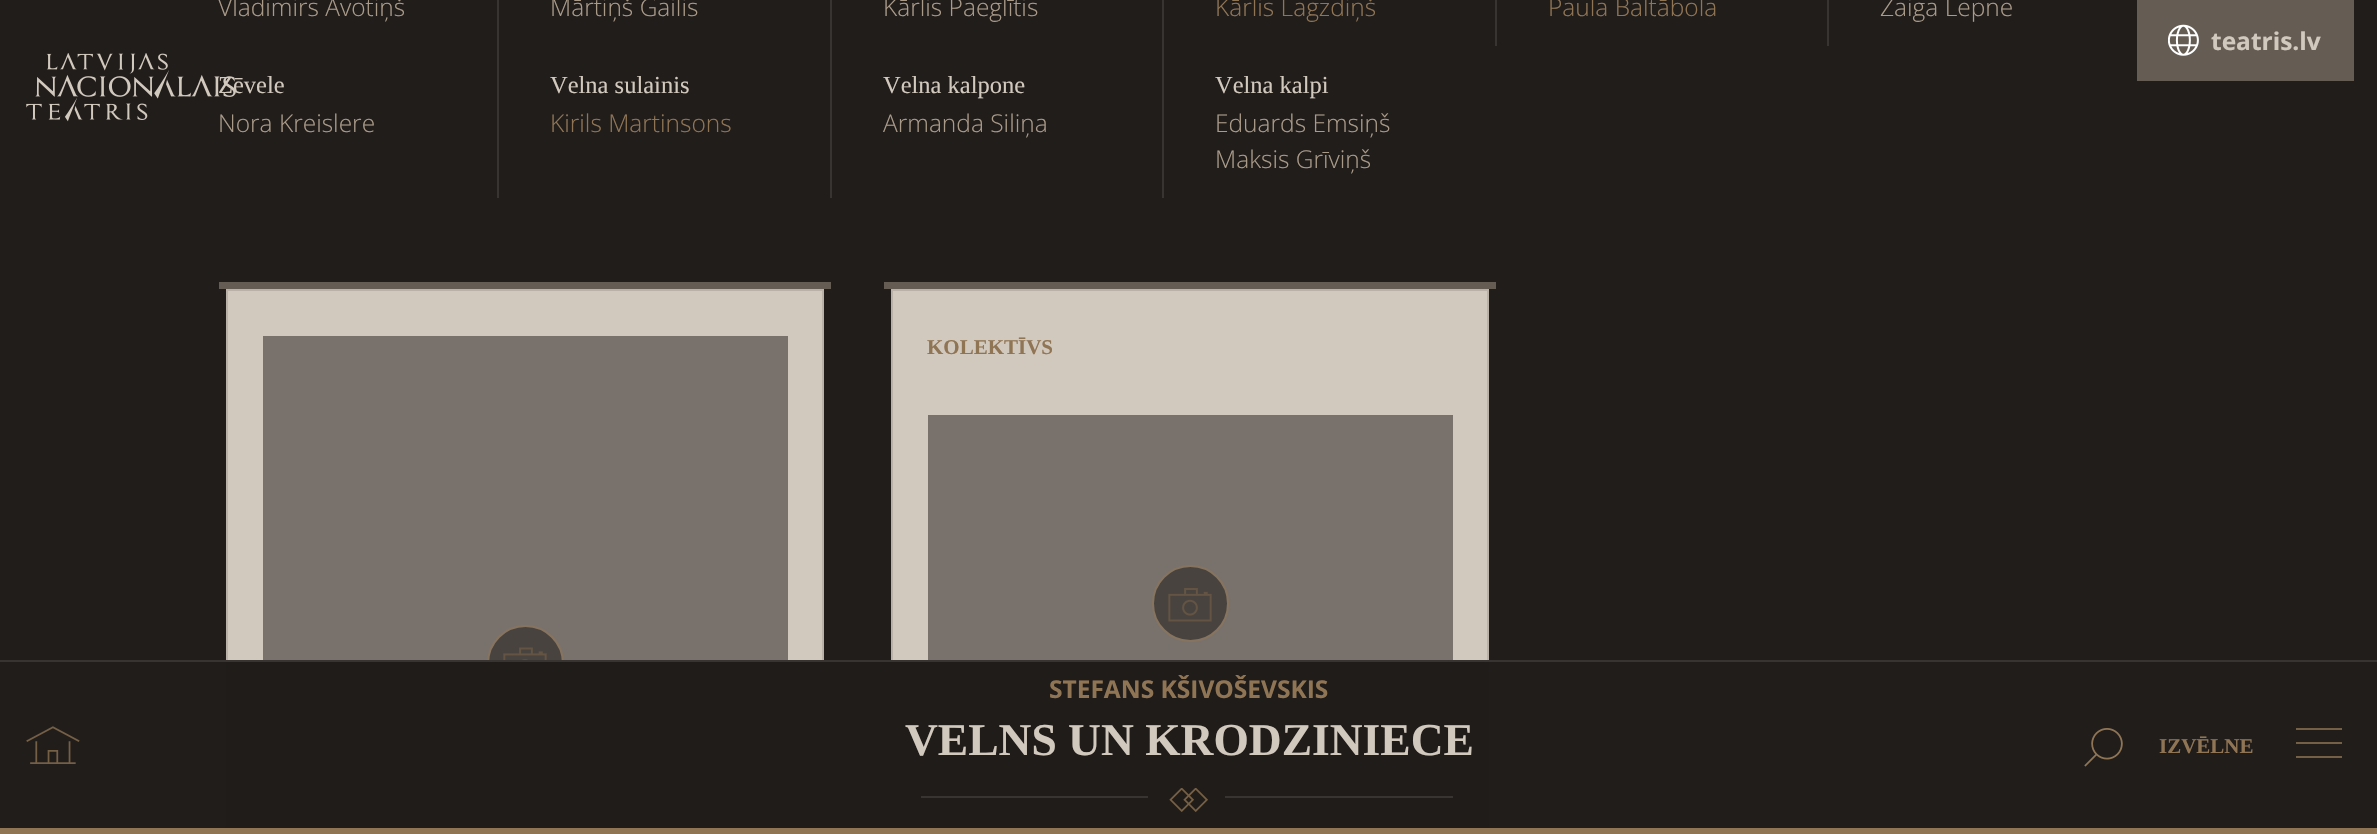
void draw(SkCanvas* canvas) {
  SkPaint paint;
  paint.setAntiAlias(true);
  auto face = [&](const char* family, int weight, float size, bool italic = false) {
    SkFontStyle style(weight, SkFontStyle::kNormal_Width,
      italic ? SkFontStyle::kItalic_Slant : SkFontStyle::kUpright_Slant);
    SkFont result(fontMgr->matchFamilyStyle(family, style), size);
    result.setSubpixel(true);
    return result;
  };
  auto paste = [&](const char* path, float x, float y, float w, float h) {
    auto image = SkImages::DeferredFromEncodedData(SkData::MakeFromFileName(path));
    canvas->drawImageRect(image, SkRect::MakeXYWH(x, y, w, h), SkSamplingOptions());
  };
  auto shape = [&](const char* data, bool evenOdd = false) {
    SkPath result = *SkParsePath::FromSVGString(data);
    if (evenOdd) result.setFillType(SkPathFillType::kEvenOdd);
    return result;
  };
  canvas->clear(0xff211d1b);
  {
    const struct { float x, y, w, h; SkColor color; } items[] = {
      {497, 0, 2, 198, 0xff373431},
      {830, 0, 2, 198, 0xff373431},
      {1162, 0, 2, 198, 0xff373431},
      {1495, 0, 2, 46, 0xff373431},
      {1827, 0, 2, 46, 0xff373431},
      {219, 282, 612, 7, 0xff655d54},
      {228, 291, 594, 369, 0xffd2c9be},
    };
    for (auto [x, y, w, h, color] : items) {
      paint.setColor(color);
      canvas->drawRect(SkRect::MakeXYWH(x, y, w, h), paint);
    }
  }
  paint.setStroke(true);
  paint.setStrokeWidth(2);
  paint.setColor(0xffbab2a8);
  canvas->drawRect(SkRect::MakeXYWH(227, 290, 596, 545), paint);
  paint.setStroke(false);
  paint.setColor(0xff79726c);
  canvas->drawRect(SkRect::MakeXYWH(263, 336, 525, 324), paint);
  paint.setColor(0xff48433f);
  canvas->drawCircle(525.5f, 663.5f, 37.5f, paint);
  paint.setStroke(true);
  paint.setColor(0xff87745e);
  canvas->drawCircle(525.5f, 663.5f, 37.5f, paint);
  paste("img/2.png", 503, 647, 44, 13);
  paint.setStroke(false);
  paint.setColor(0xff655d54);
  canvas->drawRect(SkRect::MakeXYWH(884, 282, 612, 7), paint);
  paint.setColor(0xffd2c9be);
  canvas->drawRect(SkRect::MakeXYWH(893, 291, 594, 369), paint);
  paint.setStroke(true);
  paint.setColor(0xffbab2a8);
  canvas->drawRect(SkRect::MakeXYWH(892, 290, 596, 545), paint);
  paint.setStroke(false);
  paint.setColor(0xff79726c);
  canvas->drawRect(SkRect::MakeXYWH(928, 415, 525, 245), paint);
  paint.setColor(0xff48433f);
  canvas->drawCircle(1190.5f, 603.5f, 37.5f, paint);
  paint.setStroke(true);
  paint.setColor(0xff87745e);
  canvas->drawCircle(1190.5f, 603.5f, 37.5f, paint);
  paste("img/3.png", 1168, 588, 44, 34);
  paint.setStroke(false);
  paint.setColor(0xff655d54);
  canvas->drawRect(SkRect::MakeXYWH(2137, 0, 217, 81), paint);
  paste("img/4.png", 2168, 24, 31, 32);
  {
    const struct { float x, y, w, h; SkColor color; } items[] = {
      {226, 662, 1263, 166, 0xff201c1a},
      {0, 660, 2377, 2, 0xff373431},
      {0, 828, 2377, 6, 0xff907555},
    };
    for (auto [x, y, w, h, color] : items) {
      paint.setColor(color);
      canvas->drawRect(SkRect::MakeXYWH(x, y, w, h), paint);
    }
  }
  paste("img/5.png", 26, 726, 54, 38);
  paint.setColor(0xff373431);
  canvas->drawRect(SkRect::MakeXYWH(921, 796, 227, 2), paint);
  paste("img/6.png", 1169, 788, 39, 24);
  canvas->drawRect(SkRect::MakeXYWH(1225, 796, 228, 2), paint);
  paste("img/7.png", 2084, 728, 39, 39);
  paint.setColor(0xff755f45);
  canvas->drawPath(shape("M2296 728H2342V730H2296ZM2296 742H2342V744H2296ZM2296 756H2342V758H2296Z", true), paint);
  auto f0 = face("Open Sans", 300, 24.5f);
  paint.setColor(0xffaa9b89);
  {
    const struct { const char* s; float x, y; } items[] = {
      {"Vladimirs Avotiņš", 218, 16},
      {"Mārtiņš Gailis", 550, 16},
      {"Kārlis Paeglītis", 883, 16},
    };
    for (auto [s, x, y] : items) {
      canvas->drawString(s, x, y, f0, paint);
    }
  }
  paint.setColor(0xff907555);
  canvas->drawString("Kārlis Lagzdiņš", 1215, 16, f0, paint);
  canvas->drawString("Paula Baltābola", 1548, 16, f0, paint);
  paint.setColor(0xffaa9b89);
  canvas->drawString("Zaiga Lepne", 1880, 16, f0, paint);
  auto f1 = face("Liberation Serif", 400, 24.5f);
  paint.setColor(0xffd2c9be);
  canvas->drawString("Zēvele", 218, 93, f1, paint);
  paint.setColor(0xffaa9b89);
  canvas->drawString("Nora Kreislere", 218, 132, f0, paint);
  paste("img/1.png", 26, 53, 210, 69);
  paint.setColor(0xffd2c9be);
  canvas->drawString("Velna sulainis", 550, 93, f1, paint);
  paint.setColor(0xff907555);
  canvas->drawString("Kirils Martinsons", 550, 132, f0, paint);
  paint.setColor(0xffd2c9be);
  canvas->drawString("Velna kalpone", 883, 93, f1, paint);
  paint.setColor(0xffaa9b89);
  canvas->drawString("Armanda Siliņa", 883, 132, f0, paint);
  paint.setColor(0xffd2c9be);
  canvas->drawString("Velna kalpi", 1215, 93, f1, paint);
  paint.setColor(0xffaa9b89);
  canvas->drawString("Eduards Emsiņš", 1215, 132, f0, paint);
  canvas->drawString("Maksis Grīviņš", 1215, 168, f0, paint);
  auto f2 = face("Liberation Serif", 700, 21);
  paint.setColor(0xff907555);
  canvas->drawString("KOLEKTĪVS", 927, 354, f2, paint);
  auto f3 = face("Open Sans", 700, 24.5f);
  paint.setColor(0xffd2c9be);
  canvas->drawString("teatris.lv", 2211, 50, f3, paint);
  paint.setColor(0xff907555);
  canvas->drawString("STEFANS KŠIVOŠEVSKIS", 1049, 698, f3, paint);
  auto f4 = face("Liberation Serif", 700, 45.5f);
  paint.setColor(0xffd2c9be);
  canvas->drawString("VELNS UN KRODZINIECE", 905, 755, f4, paint);
  paint.setColor(0xff907555);
  canvas->drawString("IZVĒLNE", 2159, 753, f2, paint);
}
